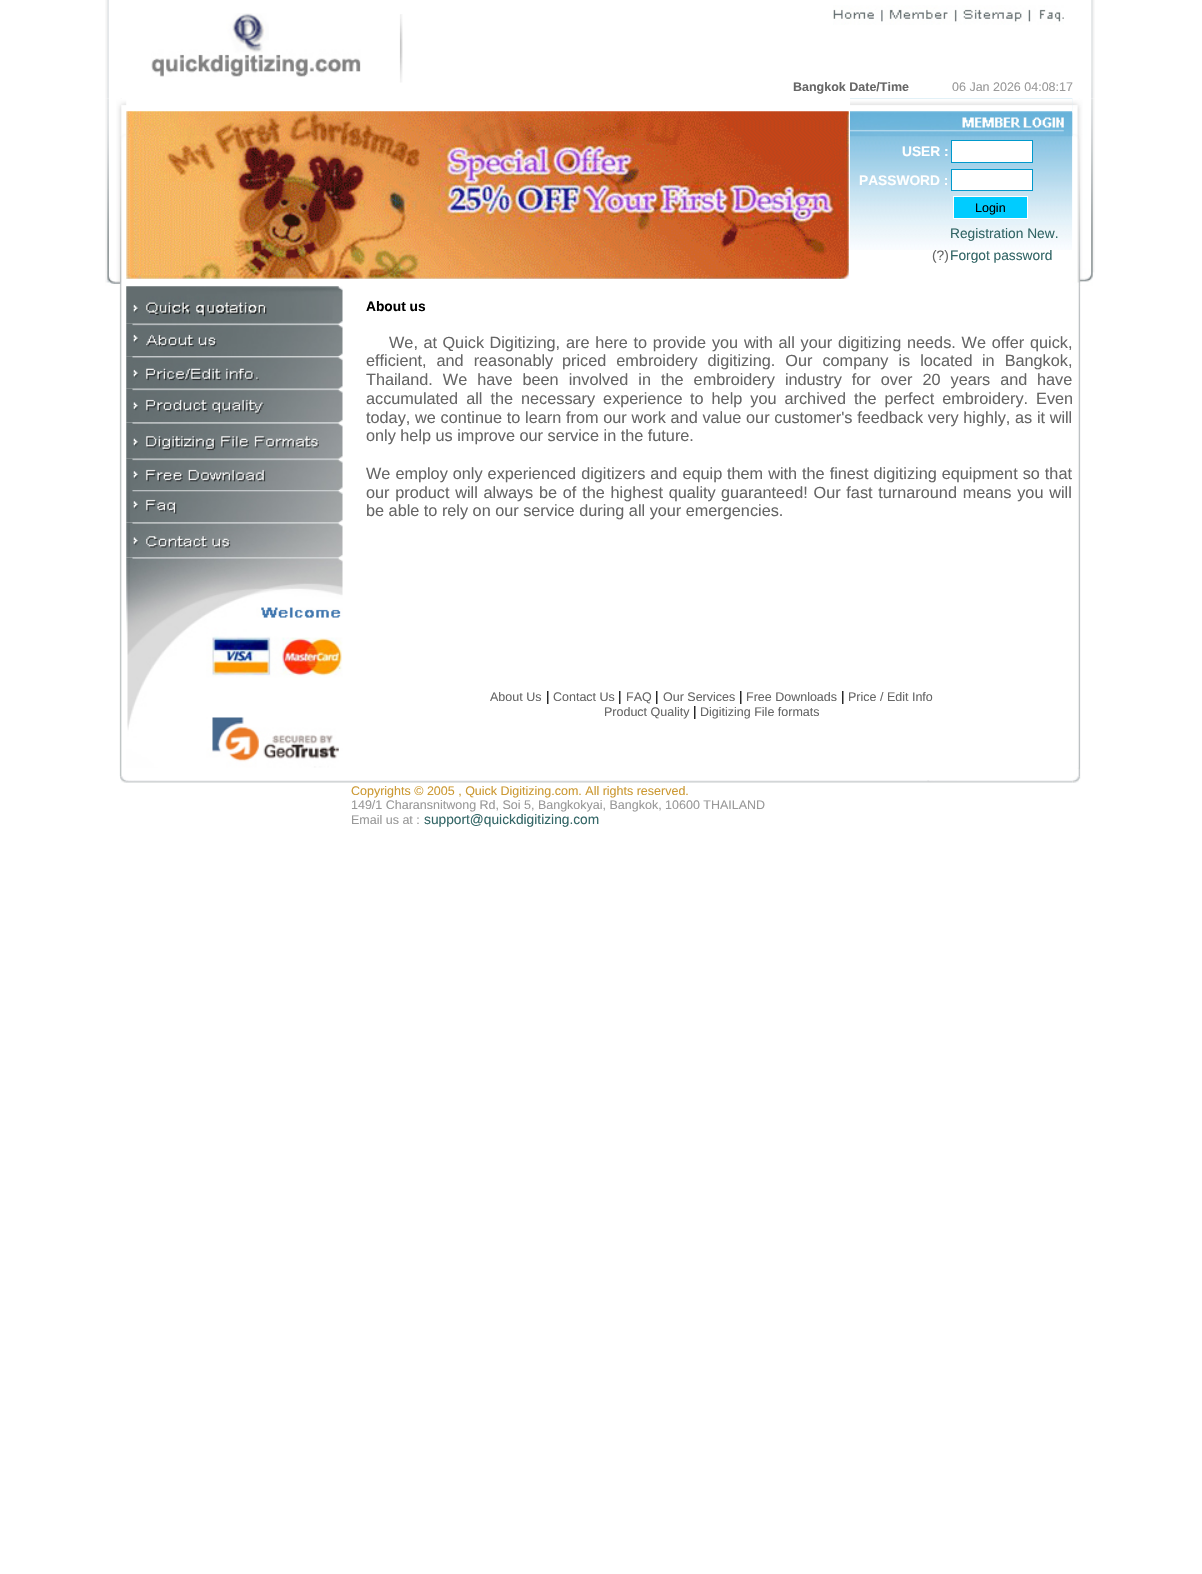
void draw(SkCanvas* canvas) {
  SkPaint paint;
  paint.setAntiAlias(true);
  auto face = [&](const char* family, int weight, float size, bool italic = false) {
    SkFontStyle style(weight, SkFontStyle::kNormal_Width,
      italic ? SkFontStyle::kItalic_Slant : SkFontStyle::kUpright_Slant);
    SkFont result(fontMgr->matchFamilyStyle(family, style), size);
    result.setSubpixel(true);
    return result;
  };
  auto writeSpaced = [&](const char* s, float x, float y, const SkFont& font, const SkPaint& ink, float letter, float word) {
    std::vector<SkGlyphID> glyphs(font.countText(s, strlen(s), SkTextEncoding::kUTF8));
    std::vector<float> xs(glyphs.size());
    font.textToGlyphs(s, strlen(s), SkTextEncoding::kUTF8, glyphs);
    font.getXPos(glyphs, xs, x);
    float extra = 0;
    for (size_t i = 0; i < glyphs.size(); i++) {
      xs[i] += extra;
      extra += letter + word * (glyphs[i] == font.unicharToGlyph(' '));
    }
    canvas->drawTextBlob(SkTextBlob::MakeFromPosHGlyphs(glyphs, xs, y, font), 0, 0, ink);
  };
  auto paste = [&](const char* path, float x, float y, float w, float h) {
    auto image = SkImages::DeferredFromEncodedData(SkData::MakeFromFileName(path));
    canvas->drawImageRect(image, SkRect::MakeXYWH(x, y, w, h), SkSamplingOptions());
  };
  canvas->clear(0xffffffff);
  paste("img/6.png", 119, 98, 3, 189);
  paste("img/1.png", 105, 0, 16, 99);
  paste("img/2.png", 151, 13, 210, 64);
  paste("img/3.png", 399, 14, 4, 69);
  paste("img/9.png", 850, 98, 223, 152);
  paste("img/12.png", 1072, 98, 9, 189);
  paste("img/4.png", 1072, 0, 23, 99);
  paste("img/5.png", 833, 5, 231, 20);
  paste("img/7.png", 105, 99, 22, 187);
  paste("img/8.png", 126, 111, 723, 168);
  paste("img/10.png", 850, 98, 223, 14);
  paste("img/11.png", 850, 112, 223, 25);
  paint.setColor(0xffffffff);
  canvas->drawRect(SkRect::MakeXYWH(951.5f, 140.5f, 81, 22), paint);
  paint.setStroke(true);
  paint.setStrokeWidth(1);
  paint.setColor(0xff0099cc);
  canvas->drawRect(SkRect::MakeXYWH(951.5f, 140.5f, 81, 22), paint);
  paint.setStroke(false);
  paint.setColor(0xffffffff);
  canvas->drawRect(SkRect::MakeXYWH(951.5f, 169.5f, 81, 21), paint);
  paint.setStroke(true);
  paint.setColor(0xff0099cc);
  canvas->drawRect(SkRect::MakeXYWH(951.5f, 169.5f, 81, 21), paint);
  paint.setStroke(false);
  paint.setColor(0xff00ccff);
  canvas->drawRect(SkRect::MakeXYWH(953.5f, 196.5f, 74, 22), paint);
  paint.setStroke(true);
  paint.setColor(0xffffffff);
  canvas->drawRect(SkRect::MakeXYWH(953.5f, 196.5f, 74, 22), paint);
  paste("img/13.png", 1072, 99, 23, 187);
  paste("img/14.png", 119, 286, 3, 491);
  paste("img/15.png", 120, 286, 2, 491);
  paste("img/16.png", 126, 286, 217, 38);
  paste("img/17.png", 126, 323, 217, 34);
  paste("img/18.png", 126, 356, 217, 33);
  paste("img/19.png", 126, 388, 217, 35);
  paste("img/20.png", 126, 422, 217, 37);
  paste("img/21.png", 126, 458, 217, 32);
  paste("img/22.png", 126, 490, 217, 33);
  paste("img/23.png", 126, 522, 217, 36);
  paste("img/24.png", 126, 557, 217, 211);
  paste("img/25.png", 1078, 286, 3, 491);
  paste("img/28.png", 126, 780, 947, 3);
  paste("img/27.png", 120, 776, 7, 7);
  paste("img/29.png", 126, 781, 1, 2);
  paste("img/30.png", 1072, 776, 9, 7);
  auto f0 = face("Liberation Sans", 700, 12.5f);
  paint.setStroke(false);
  paint.setColor(0xff666666);
  canvas->drawString("Bangkok Date/Time", 793, 91, f0, paint);
  auto f1 = face("Liberation Sans", 400, 12.5f);
  paint.setColor(0xff999999);
  canvas->drawString("06 Jan 2026 04:08:17", 952, 91, f1, paint);
  auto f2 = face("Liberation Sans", 700, 13.75f);
  paint.setColor(0xffffffff);
  canvas->drawString("USER :", 902, 156, f2, paint);
  canvas->drawString("PASSWORD :", 859, 185, f2, paint);
  paint.setColor(0xff000000);
  canvas->drawString("Login", 975, 212, f1, paint);
  auto f3 = face("Liberation Sans", 400, 13.75f);
  paint.setColor(0xff336666);
  canvas->drawString("Registration New.", 950, 238, f3, paint);
  paint.setColor(0xff666666);
  canvas->drawString("(?)", 932, 260, f3, paint);
  paint.setColor(0xff336666);
  canvas->drawString("Forgot password", 950, 260, f3, paint);
  paint.setColor(0xff000000);
  canvas->drawString("About us", 366, 311, f2, paint);
  auto f4 = face("Liberation Sans", 400, 16.25f);
  paint.setColor(0xff666666);
  writeSpaced("We, at Quick Digitizing,", 389, 348, f4, paint, 0, 1);
  writeSpaced("are here to provide you with all your digitizing", 566, 348, f4, paint, 0, 1.25f);
  writeSpaced("needs. We offer quick,", 907, 348, f4, paint, 0, 1.25f);
  {
    const struct { const char* s; float x, y; } items[] = {
      {"efficient, and reasonably", 366, 366},
      {"priced embroidery digitizing. Our company is located", 562, 366},
      {"in Bangkok,", 982, 366},
      {"Thailand. We have been involved in", 366, 385},
      {"the embroidery industry for over 20 years and", 661, 385},
    };
    for (auto [s, x, y] : items) {
      writeSpaced(s, x, y, f4, paint, 0, 5.5f);
    }
  }
  canvas->drawString("have", 1037, 385, f4, paint);
  writeSpaced("accumulated all the necessary experience", 366, 404, f4, paint, 0, 3.5f);
  writeSpaced("to help you archived the perfect embroidery. Even", 690, 404, f4, paint, 0, 3.5f);
  writeSpaced("today, we continue to learn from our work and value our customer's feedback very highly, as", 366, 423, f4, paint, 0, 0.25f);
  canvas->drawString("it will", 1037, 423, f4, paint);
  canvas->drawString("only help us improve our service in the future.", 366, 441, f4, paint);
  writeSpaced("We employ only experienced digitizers and equip", 366, 479, f4, paint, 0, 0.5f);
  writeSpaced("them with the finest digitizing equipment so that", 727, 479, f4, paint, 0, 0.5f);
  writeSpaced("our product will always be of the highest quality", 366, 498, f4, paint, 0, 1.25f);
  writeSpaced("guaranteed! Our fast turnaround means you will", 721, 498, f4, paint, 0, 1.25f);
  canvas->drawString("be able to rely on our service during all your emergencies.", 366, 516, f4, paint);
  canvas->drawString("About Us", 490, 701, f1, paint);
  paint.setColor(0xff000000);
  canvas->drawString("|", 546, 701, f3, paint);
  paint.setColor(0xff666666);
  canvas->drawString("Contact Us", 553, 701, f1, paint);
  paint.setColor(0xff000000);
  canvas->drawString("|", 618, 701, f3, paint);
  paint.setColor(0xff666666);
  canvas->drawString("FAQ", 626, 701, f1, paint);
  paint.setColor(0xff000000);
  canvas->drawString("|", 655, 701, f3, paint);
  paint.setColor(0xff666666);
  canvas->drawString("Our Services", 663, 701, f1, paint);
  paint.setColor(0xff000000);
  canvas->drawString("|", 739, 701, f3, paint);
  paint.setColor(0xff666666);
  canvas->drawString("Free Downloads", 746, 701, f1, paint);
  paint.setColor(0xff000000);
  canvas->drawString("|", 841, 701, f3, paint);
  paint.setColor(0xff666666);
  canvas->drawString("Price / Edit Info", 848, 701, f1, paint);
  canvas->drawString("Product Quality", 604, 716, f1, paint);
  paint.setColor(0xff000000);
  canvas->drawString("|", 693, 716, f3, paint);
  paint.setColor(0xff666666);
  canvas->drawString("Digitizing File formats", 700, 716, f1, paint);
  paste("img/26.png", 1072, 286, 8, 483);
  paint.setColor(0xffcc9933);
  canvas->drawString("Copyrights © 2005 , Quick Digitizing.com. All rights reserved.", 351, 795, f1, paint);
  paint.setColor(0xff999999);
  canvas->drawString("149/1 Charansnitwong Rd, Soi 5, Bangkokyai, Bangkok, 10600 THAILAND", 351, 809, f1, paint);
  canvas->drawString("Email us at :", 351, 824, f1, paint);
  paint.setColor(0xff336666);
  canvas->drawString("support@quickdigitizing.com", 424, 824, f3, paint);
}
